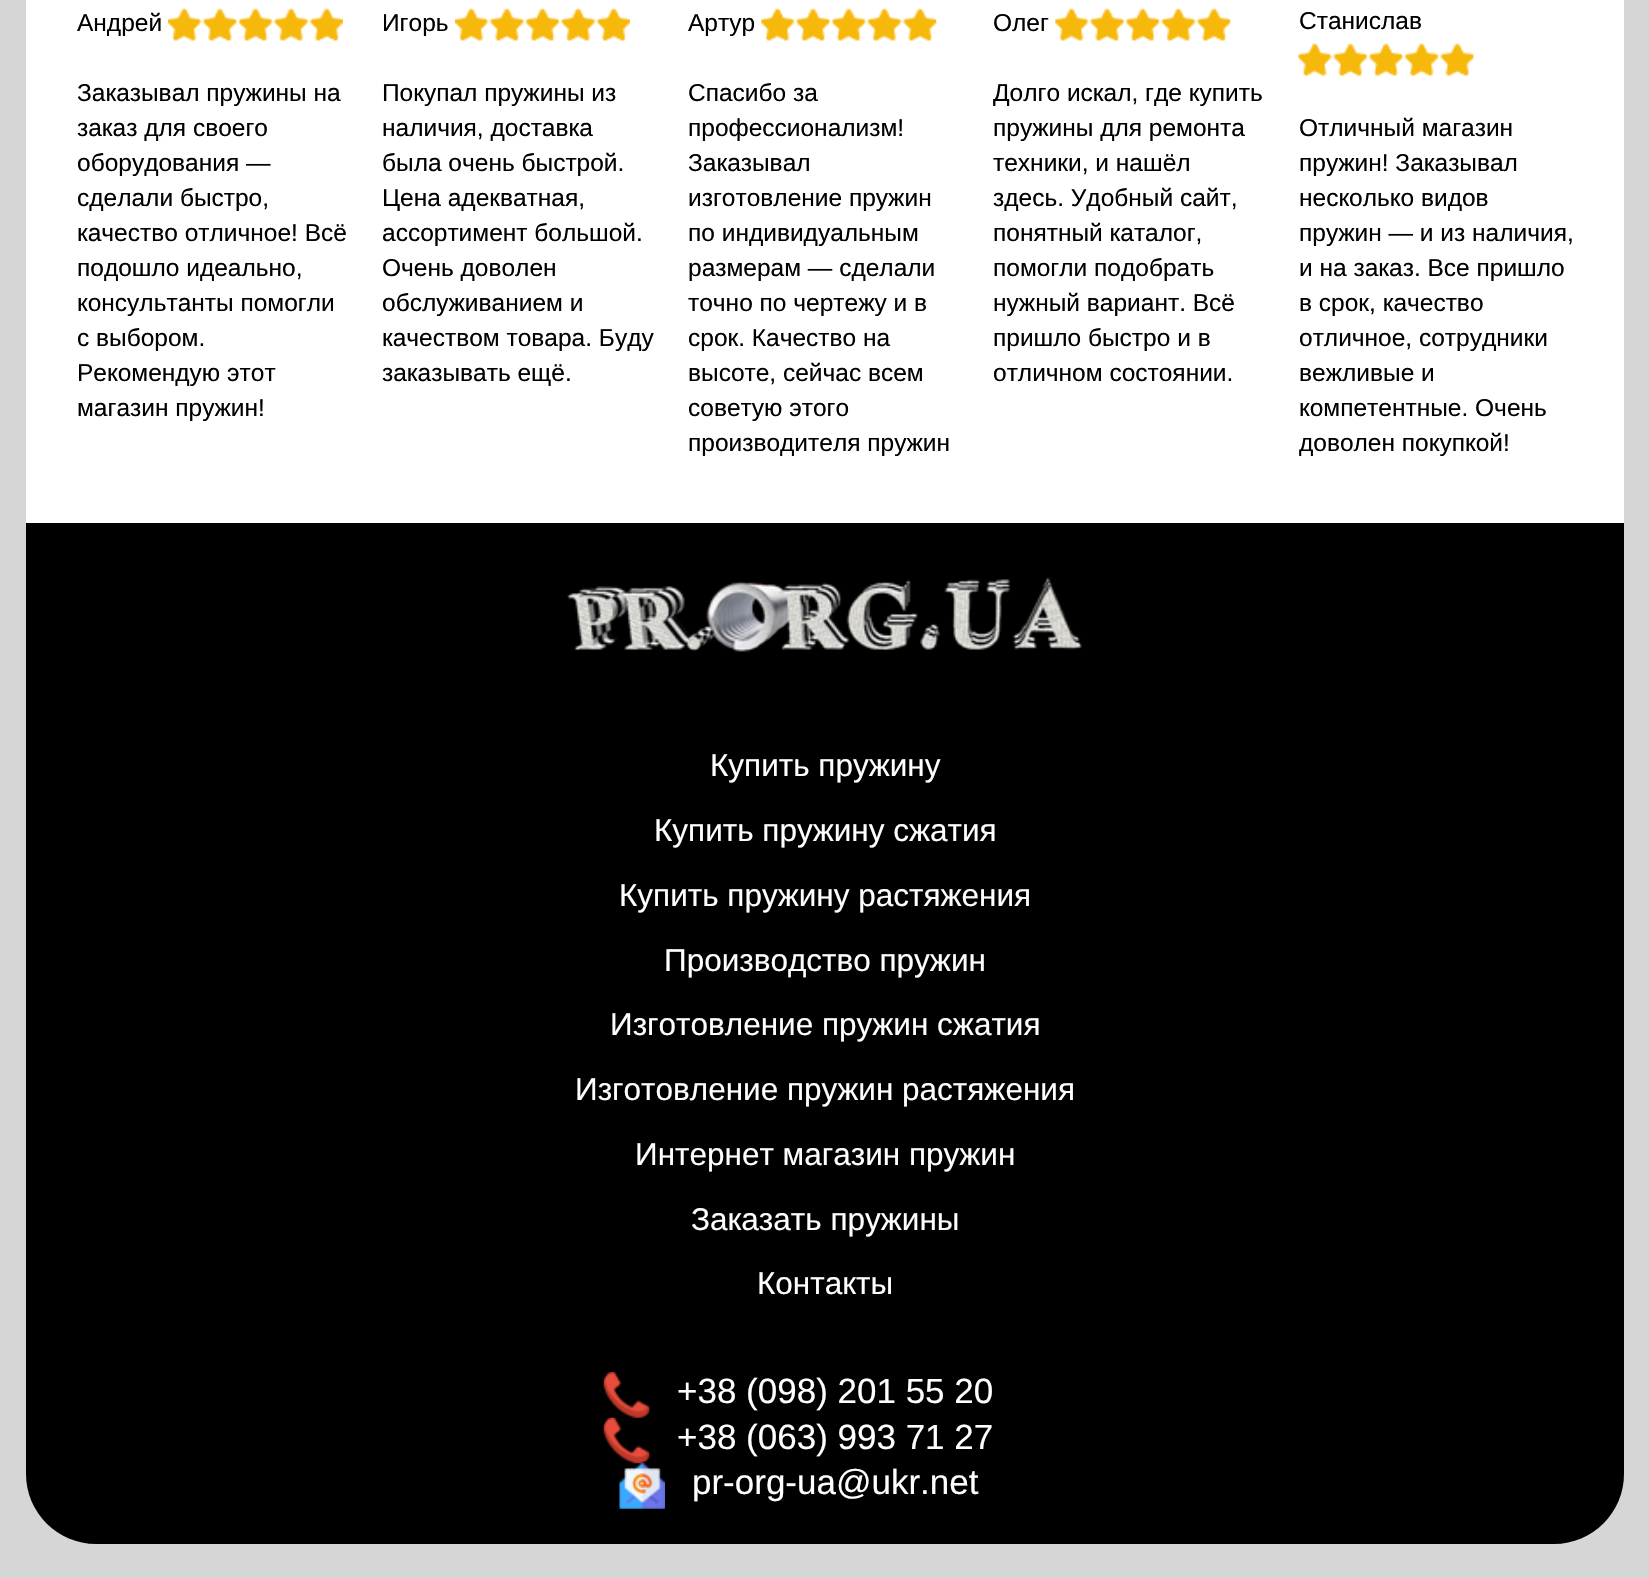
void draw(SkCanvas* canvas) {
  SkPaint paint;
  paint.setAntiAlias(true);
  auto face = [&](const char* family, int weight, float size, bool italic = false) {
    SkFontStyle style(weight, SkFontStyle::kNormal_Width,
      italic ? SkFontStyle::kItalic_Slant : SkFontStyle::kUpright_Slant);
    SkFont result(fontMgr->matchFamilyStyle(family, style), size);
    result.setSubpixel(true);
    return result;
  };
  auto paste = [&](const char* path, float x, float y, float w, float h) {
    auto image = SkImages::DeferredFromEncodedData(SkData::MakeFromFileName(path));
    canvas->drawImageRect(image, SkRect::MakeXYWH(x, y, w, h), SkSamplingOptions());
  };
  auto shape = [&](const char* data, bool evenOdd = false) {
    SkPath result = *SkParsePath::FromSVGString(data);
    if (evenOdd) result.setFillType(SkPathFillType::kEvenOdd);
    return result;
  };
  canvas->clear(0xffd6d6d6);
  paint.setColor(0xffffffff);
  canvas->drawRect(SkRect::MakeXYWH(26, 0, 1598, 523), paint);
  paste("img/1.png", 168, 8, 175, 33);
  paste("img/1.png", 455, 8, 175, 33);
  paste("img/2.png", 761, 8, 176, 33);
  paste("img/3.png", 1055, 8, 176, 33);
  paste("img/4.png", 1298, 43, 176, 33);
  paint.setColor(0xff000000);
  canvas->drawPath(shape("M26 523H1624V1474C1624 1512.5 1592.5 1544 1554 1544H96C57.5 1544 26 1512.5 26 1474Z"), paint);
  paste("img/5.png", 566, 577, 516, 75);
  paste("img/6.png", 603, 1372, 47, 46);
  paste("img/7.png", 603, 1417, 47, 47);
  paste("img/8.png", 619, 1463, 46, 46);
  auto f0 = face("Liberation Sans", 400, 24.5f);
  {
    const struct { const char* s; float x, y; } items[] = {
      {"Андрей", 77, 31},
      {"Заказывал пружины на", 77, 101},
      {"заказ для своего", 77, 136},
      {"оборудования —", 77, 171},
      {"сделали быстро,", 77, 206},
      {"качество отличное! Всё", 77, 241},
      {"подошло идеально,", 77, 276},
      {"консультанты помогли", 77, 311},
      {"с выбором.", 77, 346},
      {"Рекомендую этот", 77, 381},
      {"магазин пружин!", 77, 416},
      {"Игорь", 382, 31},
      {"Покупал пружины из", 382, 101},
      {"наличия, доставка", 382, 136},
      {"была очень быстрой.", 382, 171},
      {"Цена адекватная,", 382, 206},
      {"ассортимент большой.", 382, 241},
      {"Очень доволен", 382, 276},
      {"обслуживанием и", 382, 311},
      {"качеством товара. Буду", 382, 346},
      {"заказывать ещё.", 382, 381},
      {"Артур", 688, 31},
      {"Спасибо за", 688, 101},
      {"профессионализм!", 688, 136},
      {"Заказывал", 688, 171},
      {"изготовление пружин", 688, 206},
      {"по индивидуальным", 688, 241},
      {"размерам — сделали", 688, 276},
      {"точно по чертежу и в", 688, 311},
      {"срок. Качество на", 688, 346},
      {"высоте, сейчас всем", 688, 381},
      {"советую этого", 688, 416},
      {"производителя пружин", 688, 451},
      {"Олег", 993, 31},
      {"Долго искал, где купить", 993, 101},
      {"пружины для ремонта", 993, 136},
      {"техники, и нашёл", 993, 171},
      {"здесь. Удобный сайт,", 993, 206},
      {"понятный каталог,", 993, 241},
      {"помогли подобрать", 993, 276},
      {"нужный вариант. Всё", 993, 311},
      {"пришло быстро и в", 993, 346},
      {"отличном состоянии.", 993, 381},
      {"Станислав", 1299, 29},
      {"Отличный магазин", 1299, 136},
      {"пружин! Заказывал", 1299, 171},
      {"несколько видов", 1299, 206},
      {"пружин — и из наличия,", 1299, 241},
      {"и на заказ. Все пришло", 1299, 276},
      {"в срок, качество", 1299, 311},
      {"отличное, сотрудники", 1299, 346},
      {"вежливые и", 1299, 381},
      {"компетентные. Очень", 1299, 416},
      {"доволен покупкой!", 1299, 451},
    };
    for (auto [s, x, y] : items) {
      canvas->drawString(s, x, y, f0, paint);
    }
  }
  auto f1 = face("Liberation Sans", 400, 31.5f);
  paint.setColor(0xffffffff);
  {
    const struct { const char* s; float x, y; } items[] = {
      {"Купить пружину", 710, 776},
      {"Купить пружину сжатия", 654, 841},
      {"Купить пружину растяжения", 619, 906},
      {"Производство пружин", 664, 971},
      {"Изготовление пружин сжатия", 610, 1035},
      {"Изготовление пружин растяжения", 575, 1100},
      {"Интернет магазин пружин", 635, 1165},
      {"Заказать пружины", 691, 1230},
      {"Контакты", 757, 1294},
    };
    for (auto [s, x, y] : items) {
      canvas->drawString(s, x, y, f1, paint);
    }
  }
  auto f2 = face("Liberation Sans", 400, 35);
  {
    const struct { const char* s; float x, y; } items[] = {
      {"+38 (098) 201 55 20", 677, 1403},
      {"+38 (063) 993 71 27", 677, 1449},
      {"pr-org-ua@ukr.net", 692, 1494},
    };
    for (auto [s, x, y] : items) {
      canvas->drawString(s, x, y, f2, paint);
    }
  }
}
